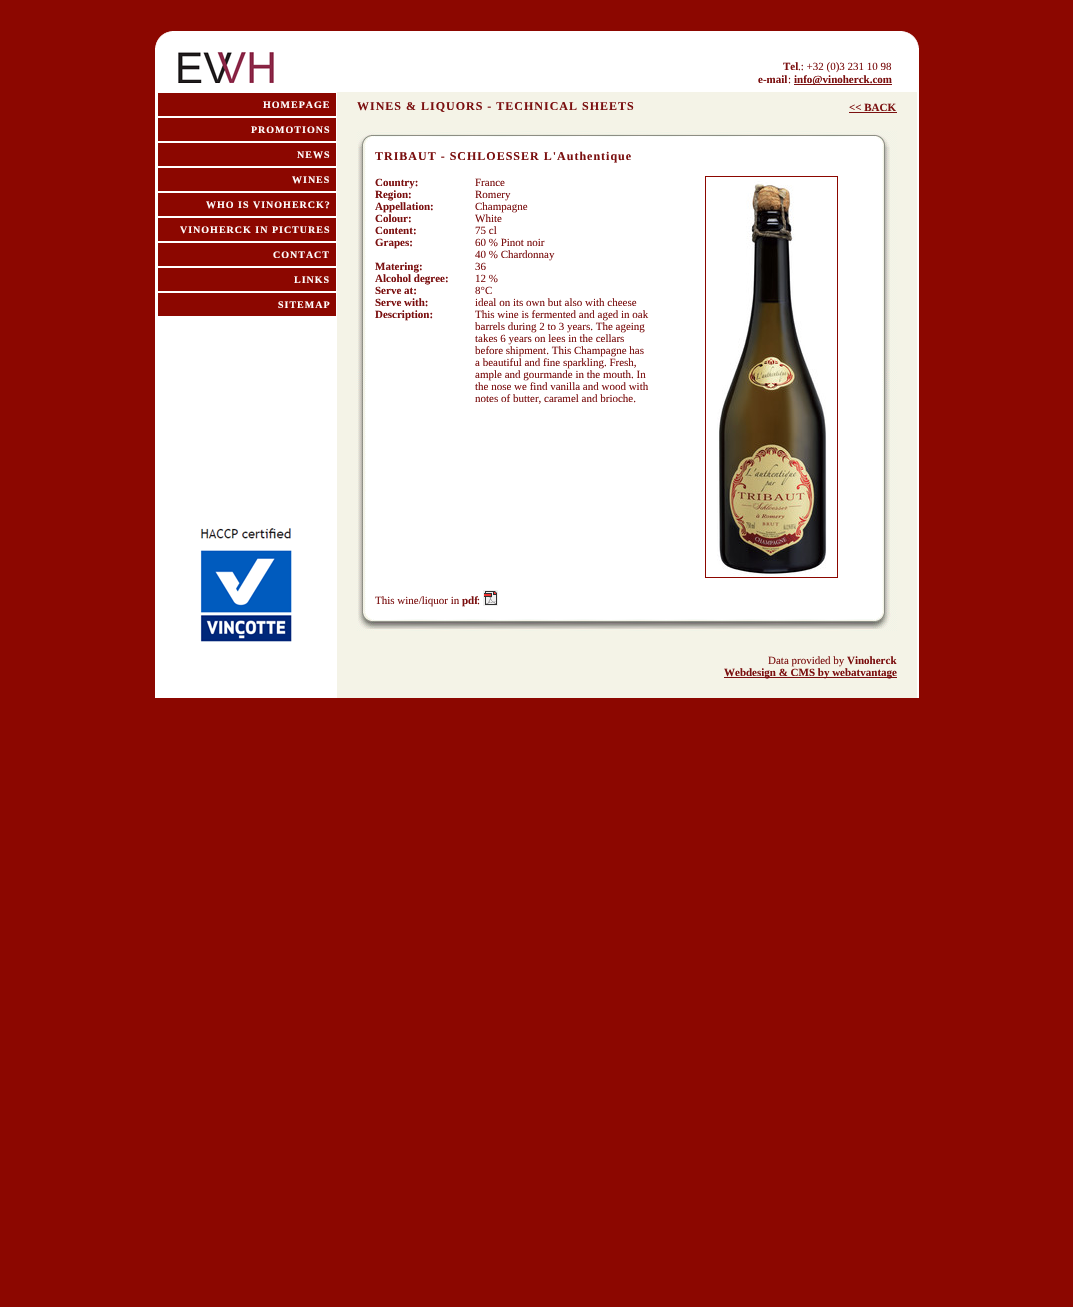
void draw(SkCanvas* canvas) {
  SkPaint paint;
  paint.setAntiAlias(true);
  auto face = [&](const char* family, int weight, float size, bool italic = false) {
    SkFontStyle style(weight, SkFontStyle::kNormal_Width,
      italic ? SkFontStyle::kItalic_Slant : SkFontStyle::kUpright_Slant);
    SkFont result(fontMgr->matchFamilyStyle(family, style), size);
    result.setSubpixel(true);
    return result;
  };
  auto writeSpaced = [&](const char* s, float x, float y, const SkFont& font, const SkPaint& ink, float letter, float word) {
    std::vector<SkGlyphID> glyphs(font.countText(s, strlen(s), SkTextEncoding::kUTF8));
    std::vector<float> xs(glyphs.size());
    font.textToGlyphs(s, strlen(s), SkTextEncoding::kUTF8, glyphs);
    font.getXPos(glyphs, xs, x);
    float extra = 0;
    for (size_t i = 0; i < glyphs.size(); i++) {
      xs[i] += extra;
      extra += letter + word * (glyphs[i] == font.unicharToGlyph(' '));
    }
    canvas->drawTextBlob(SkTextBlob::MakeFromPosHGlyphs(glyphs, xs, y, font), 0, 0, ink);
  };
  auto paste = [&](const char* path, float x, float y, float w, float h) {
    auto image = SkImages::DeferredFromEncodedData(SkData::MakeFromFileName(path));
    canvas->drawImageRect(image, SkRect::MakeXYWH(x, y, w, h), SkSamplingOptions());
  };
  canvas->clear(0xff8c0700);
  paste("img/1.png", 155, 31, 17, 17);
  paint.setColor(0xffffffff);
  canvas->drawRect(SkRect::MakeXYWH(172, 31, 730, 17), paint);
  paste("img/2.png", 902, 31, 17, 17);
  canvas->drawRect(SkRect::MakeXYWH(155, 48, 764, 650), paint);
  paste("img/3.png", 178, 52, 96, 31);
  {
    const struct { float x, y, w, h; SkColor color; } items[] = {
      {794, 84, 98, 1, 0xff7b1010},
      {158, 93, 178, 23, 0xff8c0700},
      {158, 118, 178, 23, 0xff8c0700},
      {158, 143, 178, 23, 0xff8c0700},
      {158, 168, 178, 23, 0xff8c0700},
      {158, 193, 178, 23, 0xff8c0700},
      {158, 218, 178, 23, 0xff8c0700},
      {158, 243, 178, 23, 0xff8c0700},
      {158, 268, 178, 23, 0xff8c0700},
      {158, 293, 178, 23, 0xff8c0700},
    };
    for (auto [x, y, w, h, color] : items) {
      paint.setColor(color);
      canvas->drawRect(SkRect::MakeXYWH(x, y, w, h), paint);
    }
  }
  paste("img/4.png", 200, 528, 92, 114);
  paint.setColor(0xfff4f3e7);
  canvas->drawRect(SkRect::MakeXYWH(337, 92, 580, 562), paint);
  paint.setColor(0xff7b1010);
  canvas->drawRect(SkRect::MakeXYWH(849, 112, 48, 1), paint);
  paste("img/5.png", 357, 131, 18, 18);
  paste("img/6.png", 375, 131, 498, 18);
  paste("img/7.png", 376, 131, 496, 6);
  paste("img/8.png", 873, 131, 24, 18);
  paste("img/9.png", 357, 149, 18, 464);
  paste("img/10.png", 357, 372, 9, 18);
  paint.setColor(0xffffffff);
  canvas->drawRect(SkRect::MakeXYWH(375, 149, 498, 464), paint);
  paint.setStroke(true);
  paint.setStrokeWidth(1);
  paint.setColor(0xff8c0700);
  canvas->drawRect(SkRect::MakeXYWH(705.5f, 176.5f, 132, 401), paint);
  paste("img/11.png", 717, 179, 110, 398);
  paste("img/12.png", 483, 590, 15, 16);
  paste("img/13.png", 873, 149, 24, 464);
  paste("img/14.png", 882, 372, 15, 18);
  paste("img/15.png", 357, 613, 18, 18);
  paste("img/16.png", 375, 613, 498, 18);
  paste("img/17.png", 376, 619, 496, 12);
  paste("img/18.png", 873, 613, 24, 18);
  paint.setStroke(false);
  paint.setColor(0xfff4f3e7);
  canvas->drawRect(SkRect::MakeXYWH(337, 654, 580, 44), paint);
  paint.setColor(0xff7b1010);
  canvas->drawRect(SkRect::MakeXYWH(724, 677, 173, 1), paint);
  auto f0 = face("Liberation Serif", 700, 11);
  canvas->drawString("Tel", 783, 70, f0, paint);
  auto f1 = face("Liberation Serif", 400, 11);
  canvas->drawString(".: +32 (0)3 231 10 98", 798, 70, f1, paint);
  canvas->drawString("e-mail", 758, 83, f0, paint);
  canvas->drawString(":", 788, 83, f1, paint);
  canvas->drawString("info@vinoherck.com", 794, 83, f0, paint);
  auto f2 = face("Liberation Serif", 700, 10);
  paint.setColor(0xffffffff);
  {
    const struct { const char* s; float x, y; } items[] = {
      {"HOMEPAGE", 263, 108},
      {"PROMOTIONS", 251, 133},
      {"NEWS", 297, 158},
      {"WINES", 292, 183},
      {"WHO IS VINOHERCK?", 206, 208},
      {"VINOHERCK IN PICTURES", 180, 233},
      {"CONTACT", 273, 258},
      {"LINKS", 294, 283},
      {"SITEMAP", 278, 308},
    };
    for (auto [s, x, y] : items) {
      writeSpaced(s, x, y, f2, paint, 1, 0);
    }
  }
  auto f3 = face("Liberation Serif", 700, 12);
  paint.setColor(0xff7b1010);
  writeSpaced("WINES & LIQUORS - TECHNICAL SHEETS", 357, 110, f3, paint, 1, 0);
  canvas->drawString("<< BACK", 849, 111, f0, paint);
  writeSpaced("TRIBAUT - SCHLOESSER L'Authentique", 375, 160, f3, paint, 1, 0);
  canvas->drawString("Country:", 375, 186, f0, paint);
  canvas->drawString("France", 475, 186, f1, paint);
  canvas->drawString("Region:", 375, 198, f0, paint);
  canvas->drawString("Romery", 475, 198, f1, paint);
  canvas->drawString("Appellation:", 375, 210, f0, paint);
  canvas->drawString("Champagne", 475, 210, f1, paint);
  canvas->drawString("Colour:", 375, 222, f0, paint);
  canvas->drawString("White", 475, 222, f1, paint);
  canvas->drawString("Content:", 375, 234, f0, paint);
  canvas->drawString("75 cl", 475, 234, f1, paint);
  canvas->drawString("Grapes:", 375, 246, f0, paint);
  canvas->drawString("60 % Pinot noir", 475, 246, f1, paint);
  canvas->drawString("40 % Chardonnay", 475, 258, f1, paint);
  canvas->drawString("Matering:", 375, 270, f0, paint);
  canvas->drawString("36", 475, 270, f1, paint);
  canvas->drawString("Alcohol degree:", 375, 282, f0, paint);
  canvas->drawString("12 %", 475, 282, f1, paint);
  canvas->drawString("Serve at:", 375, 294, f0, paint);
  canvas->drawString("8°C", 475, 294, f1, paint);
  canvas->drawString("Serve with:", 375, 306, f0, paint);
  canvas->drawString("ideal on its own but also with cheese", 475, 306, f1, paint);
  canvas->drawString("Description:", 375, 318, f0, paint);
  {
    const struct { const char* s; float x, y; } items[] = {
      {"This wine is fermented and aged in oak", 475, 318},
      {"barrels during 2 to 3 years. The ageing", 475, 330},
      {"takes 6 years on lees in the cellars", 475, 342},
      {"before shipment. This Champagne has", 475, 354},
      {"a beautiful and fine sparkling. Fresh,", 475, 366},
      {"ample and gourmande in the mouth. In", 475, 378},
      {"the nose we find vanilla and wood with", 475, 390},
      {"notes of butter, caramel and brioche.", 475, 402},
      {"This wine/liquor in", 375, 604},
    };
    for (auto [s, x, y] : items) {
      canvas->drawString(s, x, y, f1, paint);
    }
  }
  canvas->drawString("pdf", 462, 604, f0, paint);
  canvas->drawString(":", 477, 604, f1, paint);
  canvas->drawString("Data provided by", 768, 664, f1, paint);
  canvas->drawString("Vinoherck", 847, 664, f0, paint);
  canvas->drawString("Webdesign & CMS by webatvantage", 724, 676, f0, paint);
}
